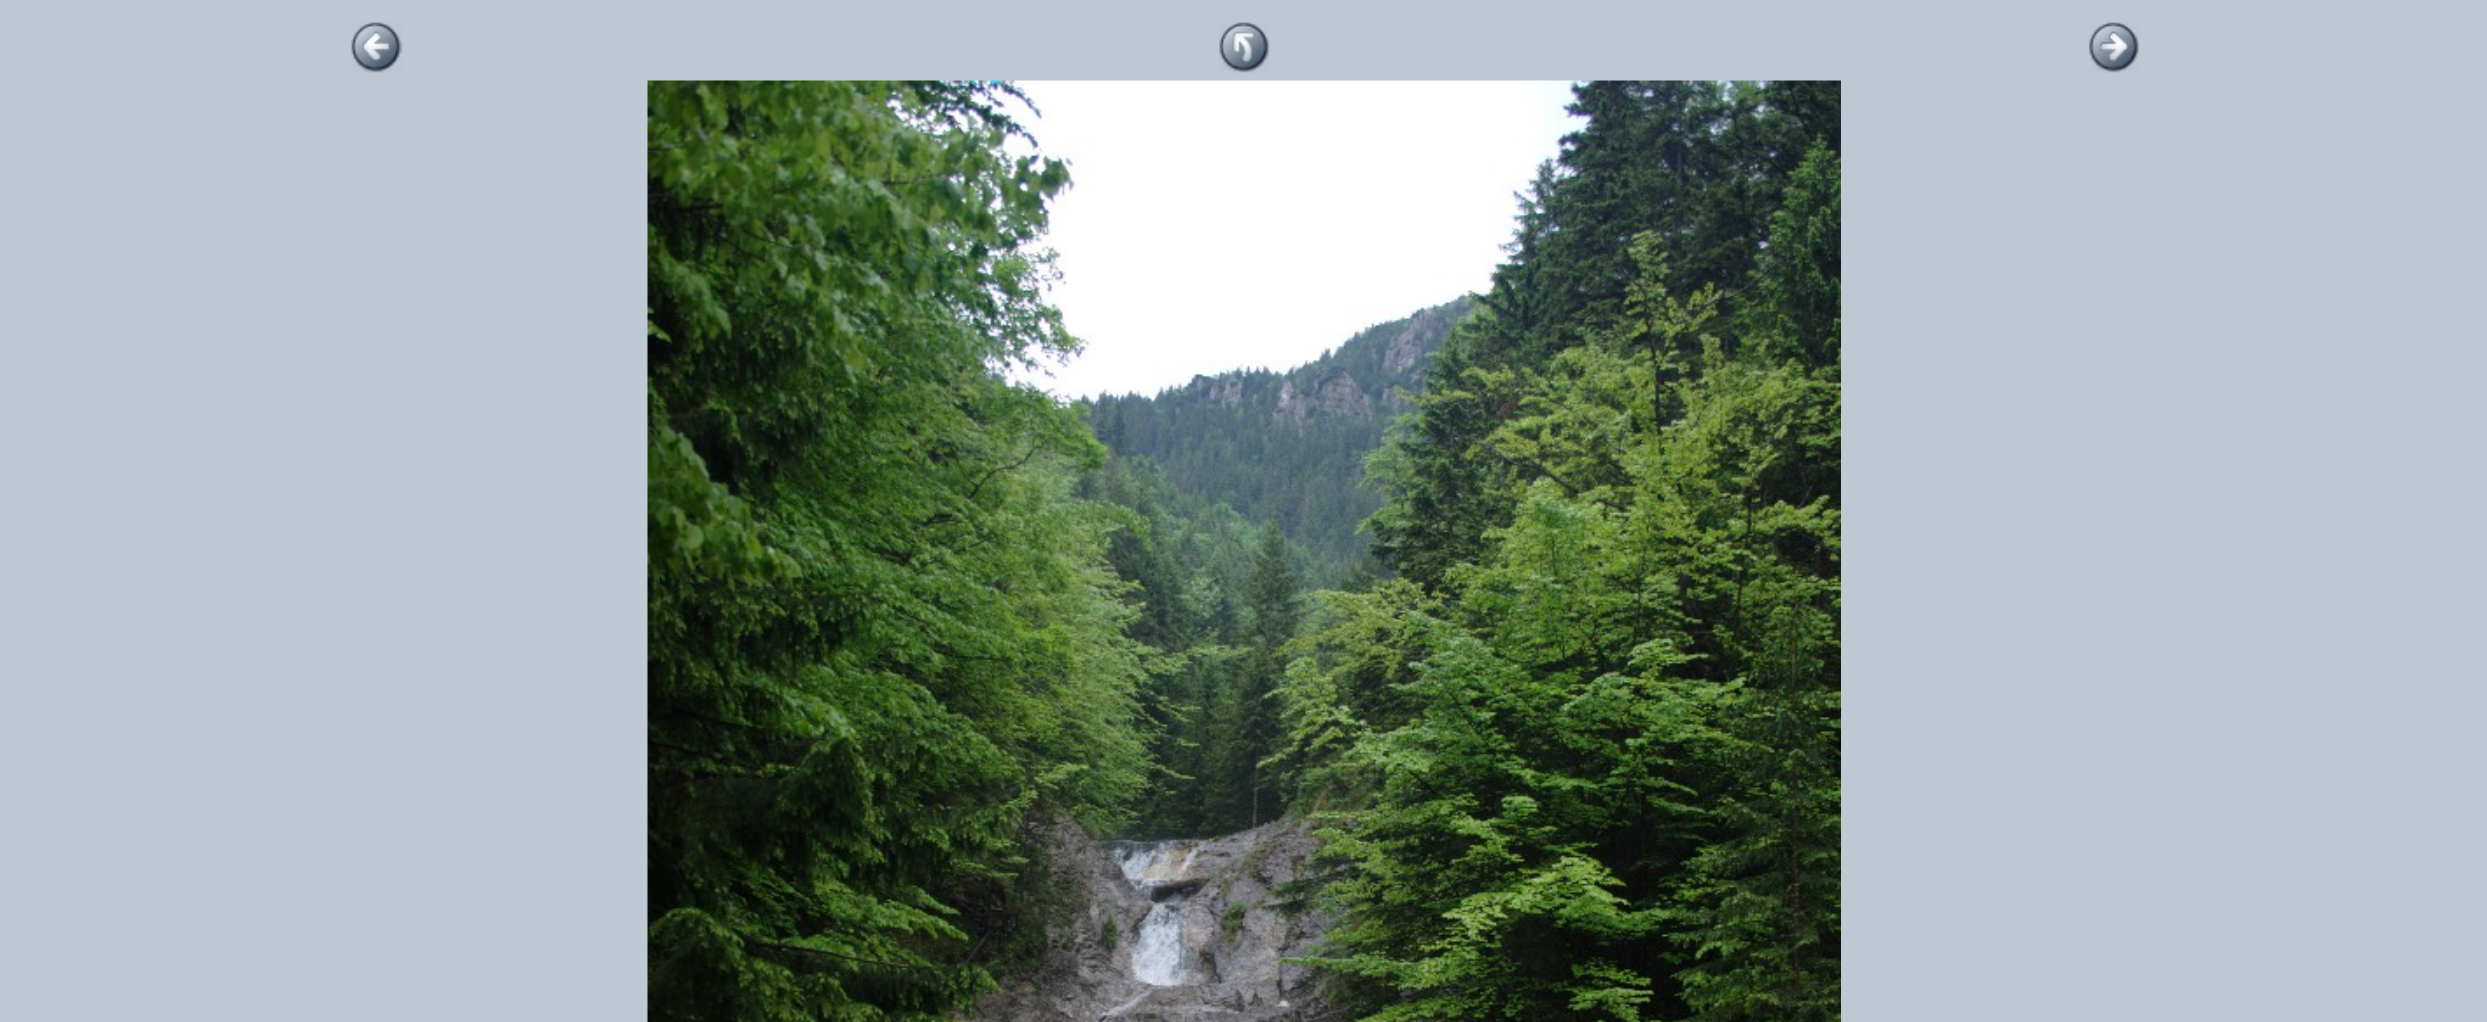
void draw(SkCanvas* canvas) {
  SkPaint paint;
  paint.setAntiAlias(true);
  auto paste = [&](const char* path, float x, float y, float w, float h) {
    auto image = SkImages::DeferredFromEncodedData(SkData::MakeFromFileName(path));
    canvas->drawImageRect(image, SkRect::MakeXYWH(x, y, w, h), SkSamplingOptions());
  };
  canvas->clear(0xffbec8d2);
  paste("img/1.png", 351, 22, 52, 51);
  paste("img/2.png", 1219, 22, 51, 51);
  paste("img/3.png", 2089, 22, 50, 51);
  paste("img/4.png", 647, 80, 1194, 942);
}
